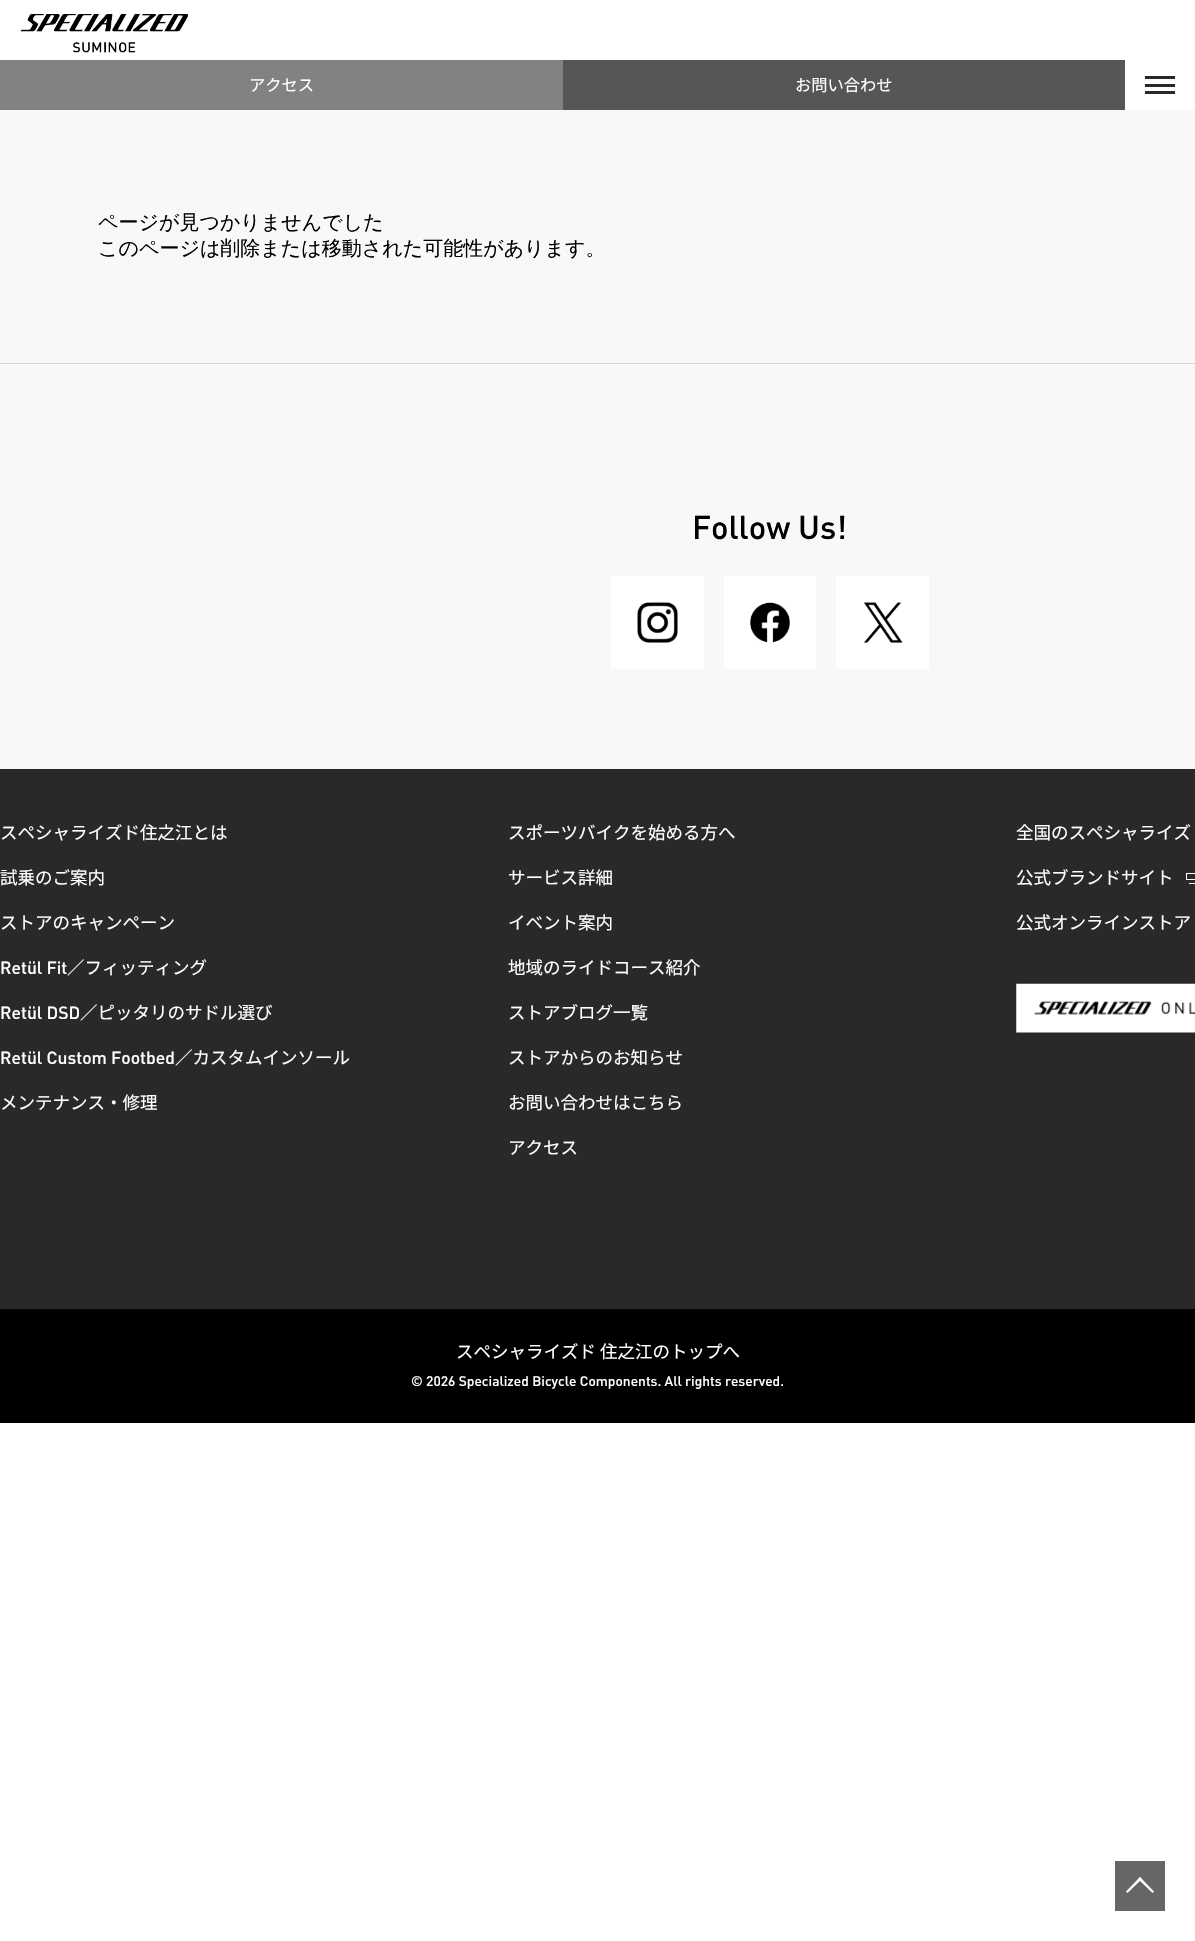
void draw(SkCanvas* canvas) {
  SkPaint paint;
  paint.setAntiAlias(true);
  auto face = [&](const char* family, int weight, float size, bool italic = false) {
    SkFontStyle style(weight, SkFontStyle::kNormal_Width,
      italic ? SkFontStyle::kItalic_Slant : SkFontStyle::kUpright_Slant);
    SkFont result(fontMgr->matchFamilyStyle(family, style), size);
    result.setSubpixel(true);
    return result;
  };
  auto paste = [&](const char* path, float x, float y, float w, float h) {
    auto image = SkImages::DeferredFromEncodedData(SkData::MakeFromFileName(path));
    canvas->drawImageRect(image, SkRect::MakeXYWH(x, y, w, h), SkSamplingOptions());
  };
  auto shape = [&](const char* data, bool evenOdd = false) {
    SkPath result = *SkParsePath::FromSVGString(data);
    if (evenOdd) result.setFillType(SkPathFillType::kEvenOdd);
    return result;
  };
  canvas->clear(0xffffffff);
  paste("img/1.png", 20, 14, 168, 39);
  {
    const struct { float x, y, w, h; SkColor color; } items[] = {
      {0, 60, 563, 50, 0xff828282},
      {563, 60, 562, 50, 0xff565656},
      {1145, 76, 30, 3, 0xff292929},
      {1145, 84, 30, 3, 0xff292929},
      {1145, 91, 30, 3, 0xff292929},
      {0, 110, 1195, 253, 0xfff8f8f8},
      {0, 364, 1195, 405, 0xfff8f8f8},
      {0, 363, 1195, 1, 0xffd7d5d5},
      {611, 576, 93, 93, 0xffffffff},
    };
    for (auto [x, y, w, h, color] : items) {
      paint.setColor(color);
      canvas->drawRect(SkRect::MakeXYWH(x, y, w, h), paint);
    }
  }
  paste("img/2.png", 637, 602, 41, 41);
  canvas->drawRect(SkRect::MakeXYWH(724, 576, 92, 93), paint);
  paste("img/3.png", 750, 602, 40, 41);
  canvas->drawRect(SkRect::MakeXYWH(836, 576, 93, 93), paint);
  paste("img/4.png", 864, 602, 39, 41);
  paint.setColor(0xff292929);
  canvas->drawRect(SkRect::MakeXYWH(0, 769, 1195, 540), paint);
  paint.setStroke(true);
  paint.setStrokeWidth(1);
  paint.setColor(0xffffffff);
  canvas->drawRect(SkRect::MakeXYWH(1186.5f, 873.5f, 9, 6), paint);
  paint.setStroke(false);
  canvas->drawRect(SkRect::MakeXYWH(1189, 883, 6, 1), paint);
  paste("img/5.png", 1016, 983, 179, 50);
  paint.setColor(0xff000000);
  canvas->drawRect(SkRect::MakeXYWH(0, 1309, 1195, 114), paint);
  paint.setColor(0xff666666);
  canvas->drawRect(SkRect::MakeXYWH(1115, 1861, 50, 50), paint);
  paint.setColor(0xffffffff);
  canvas->drawPath(shape("M1126 1891.5L1140 1877L1142 1879L1127.5 1893Z"), paint);
  canvas->drawPath(shape("M1138 1879L1140 1877L1154 1891.5L1152.5 1893Z"), paint);
  auto f0 = face("Noto Sans JP", 400, 16.25f);
  canvas->drawString("アクセス", 249, 91, f0, paint);
  canvas->drawString("お問い合わせ", 795, 91, f0, paint);
  auto f1 = face("WenQuanYi Zen Hei", 500, 20);
  paint.setColor(0xff000000);
  canvas->drawString("ページが見つかりませんでした", 98, 229, f1, paint);
  canvas->drawString("このページは削除または移動された可能性があります。", 98, 255, f1, paint);
  auto f2 = face("DIN", 500, 32.5f);
  canvas->drawString("Follow Us!", 692, 539, f2, paint);
  auto f3 = face("Noto Sans JP", 400, 17.5f);
  paint.setColor(0xffffffff);
  {
    const struct { const char* s; float x, y; } items[] = {
      {"スペシャライズド住之江とは", 0, 839},
      {"試乗のご案内", 0, 884},
      {"ストアのキャンペーン", 0, 929},
    };
    for (auto [s, x, y] : items) {
      canvas->drawString(s, x, y, f3, paint);
    }
  }
  auto f4 = face("DIN", 500, 17.5f);
  canvas->drawString("Retül Fit", 0, 974, f4, paint);
  canvas->drawString("／フィッティング", 67, 974, f3, paint);
  canvas->drawString("Retül DSD", 0, 1019, f4, paint);
  canvas->drawString("／ピッタリのサドル選び", 80, 1019, f3, paint);
  canvas->drawString("Retül Custom Footbed", 0, 1064, f4, paint);
  {
    const struct { const char* s; float x, y; } items[] = {
      {"／カスタムインソール", 175, 1064},
      {"メンテナンス・修理", 0, 1109},
      {"スポーツバイクを始める方へ", 508, 839},
      {"サービス詳細", 508, 884},
      {"イベント案内", 508, 929},
      {"地域のライドコース紹介", 508, 974},
      {"ストアブログ一覧", 508, 1019},
      {"ストアからのお知らせ", 508, 1064},
      {"お問い合わせはこちら", 508, 1109},
      {"アクセス", 508, 1154},
      {"全国のスペシャライズ", 1016, 839},
      {"公式ブランドサイト", 1016, 884},
      {"公式オンラインストア", 1016, 929},
      {"スペシャライズド 住之江のトップへ", 456, 1358},
    };
    for (auto [s, x, y] : items) {
      canvas->drawString(s, x, y, f3, paint);
    }
  }
  auto f5 = face("DIN", 500, 13.75f);
  canvas->drawString("© 2026 Specialized Bicycle Components. All rights reserved.", 411, 1386, f5, paint);
}
